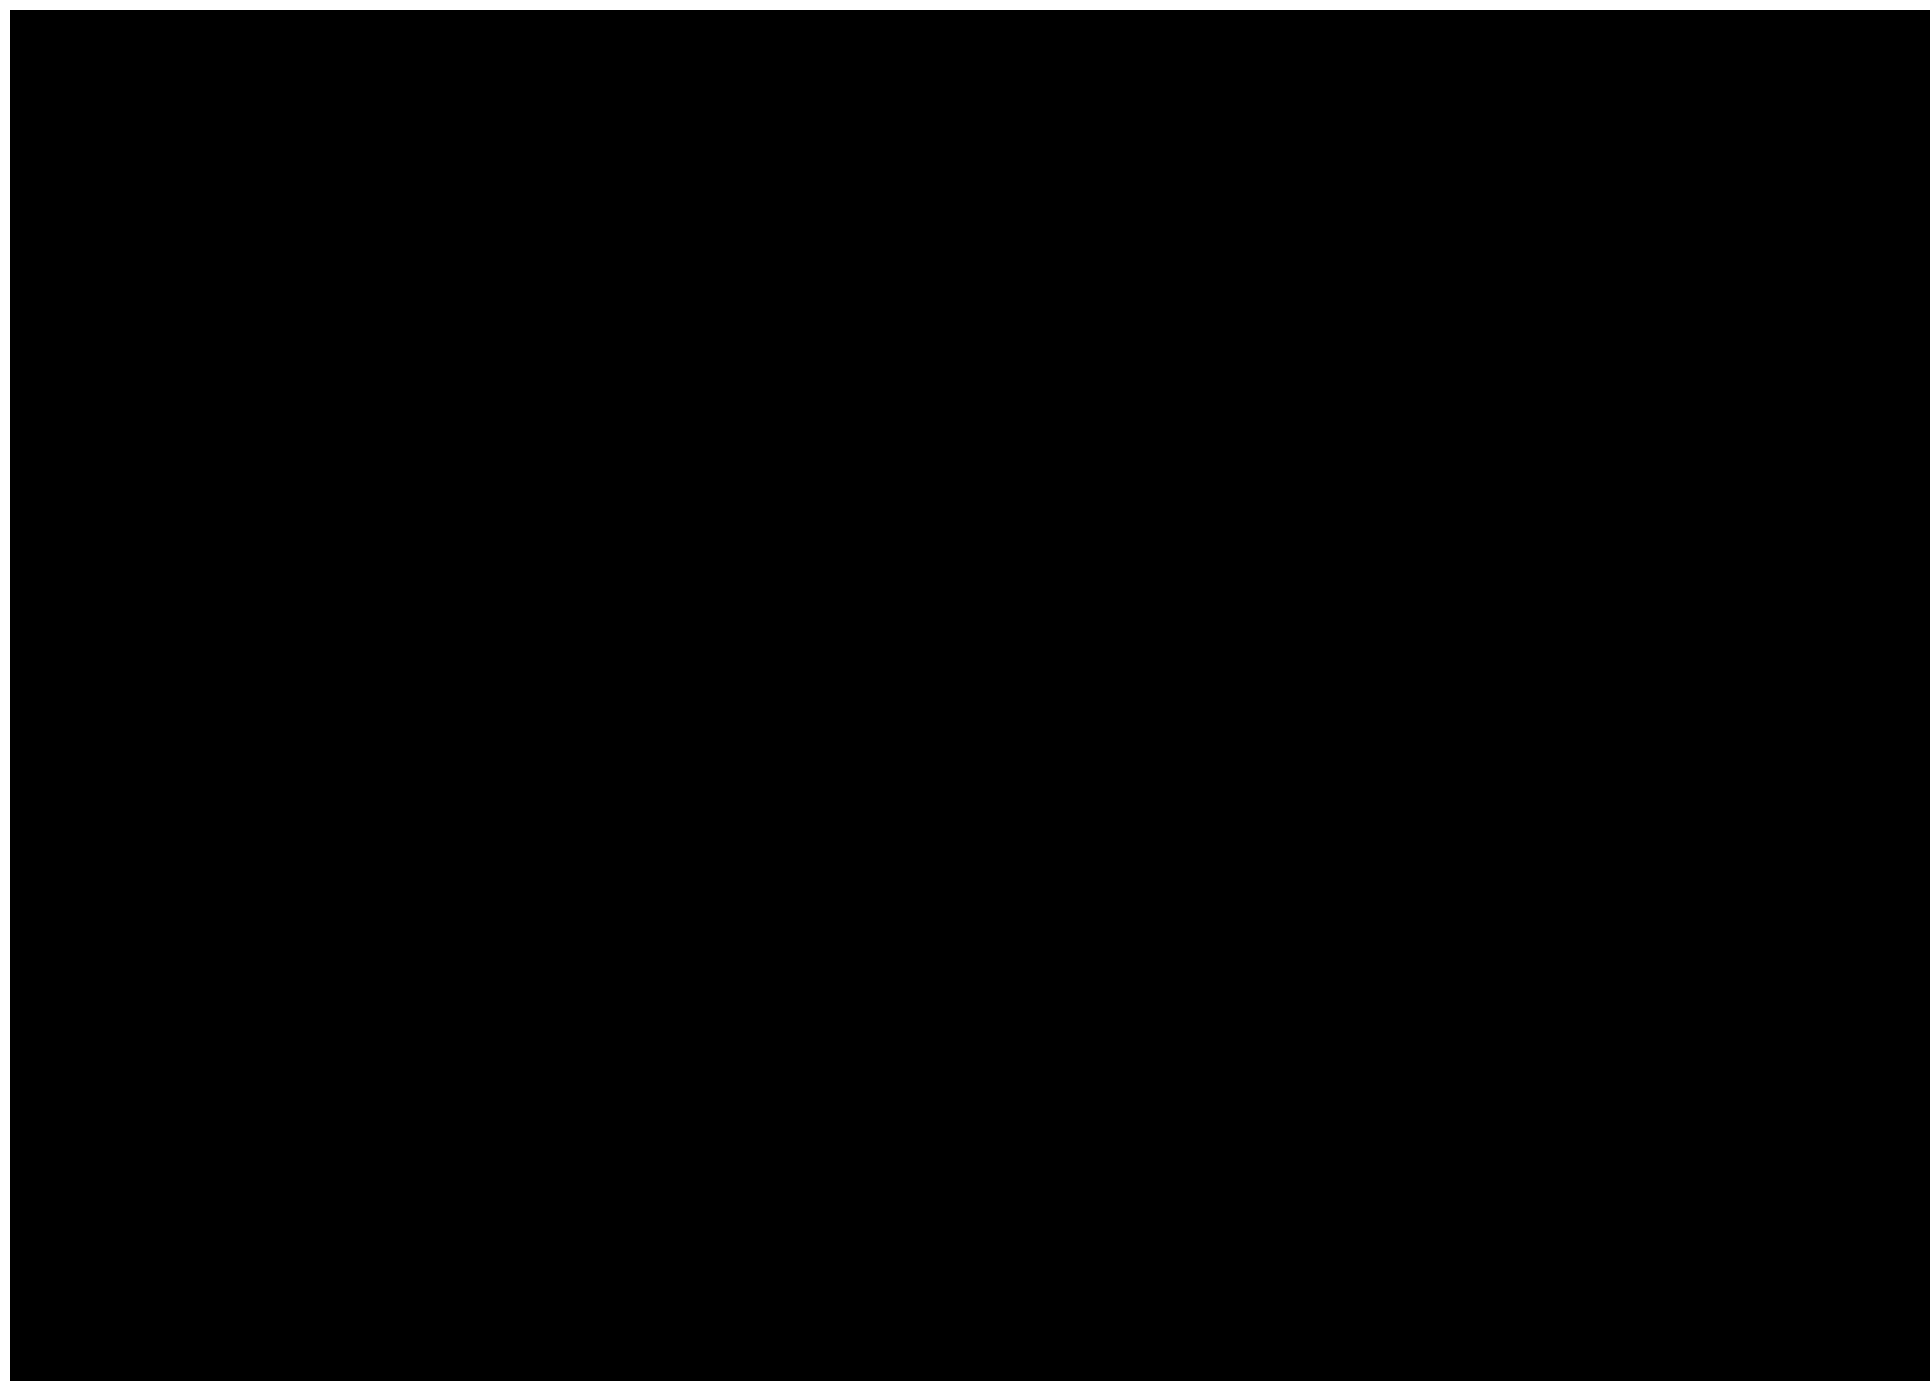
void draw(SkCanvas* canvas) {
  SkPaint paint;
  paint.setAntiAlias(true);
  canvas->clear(0xffffffff);
  paint.setColor(0xff000000);
  canvas->drawRect(SkRect::MakeXYWH(10, 10, 1920, 1371), paint);
}
